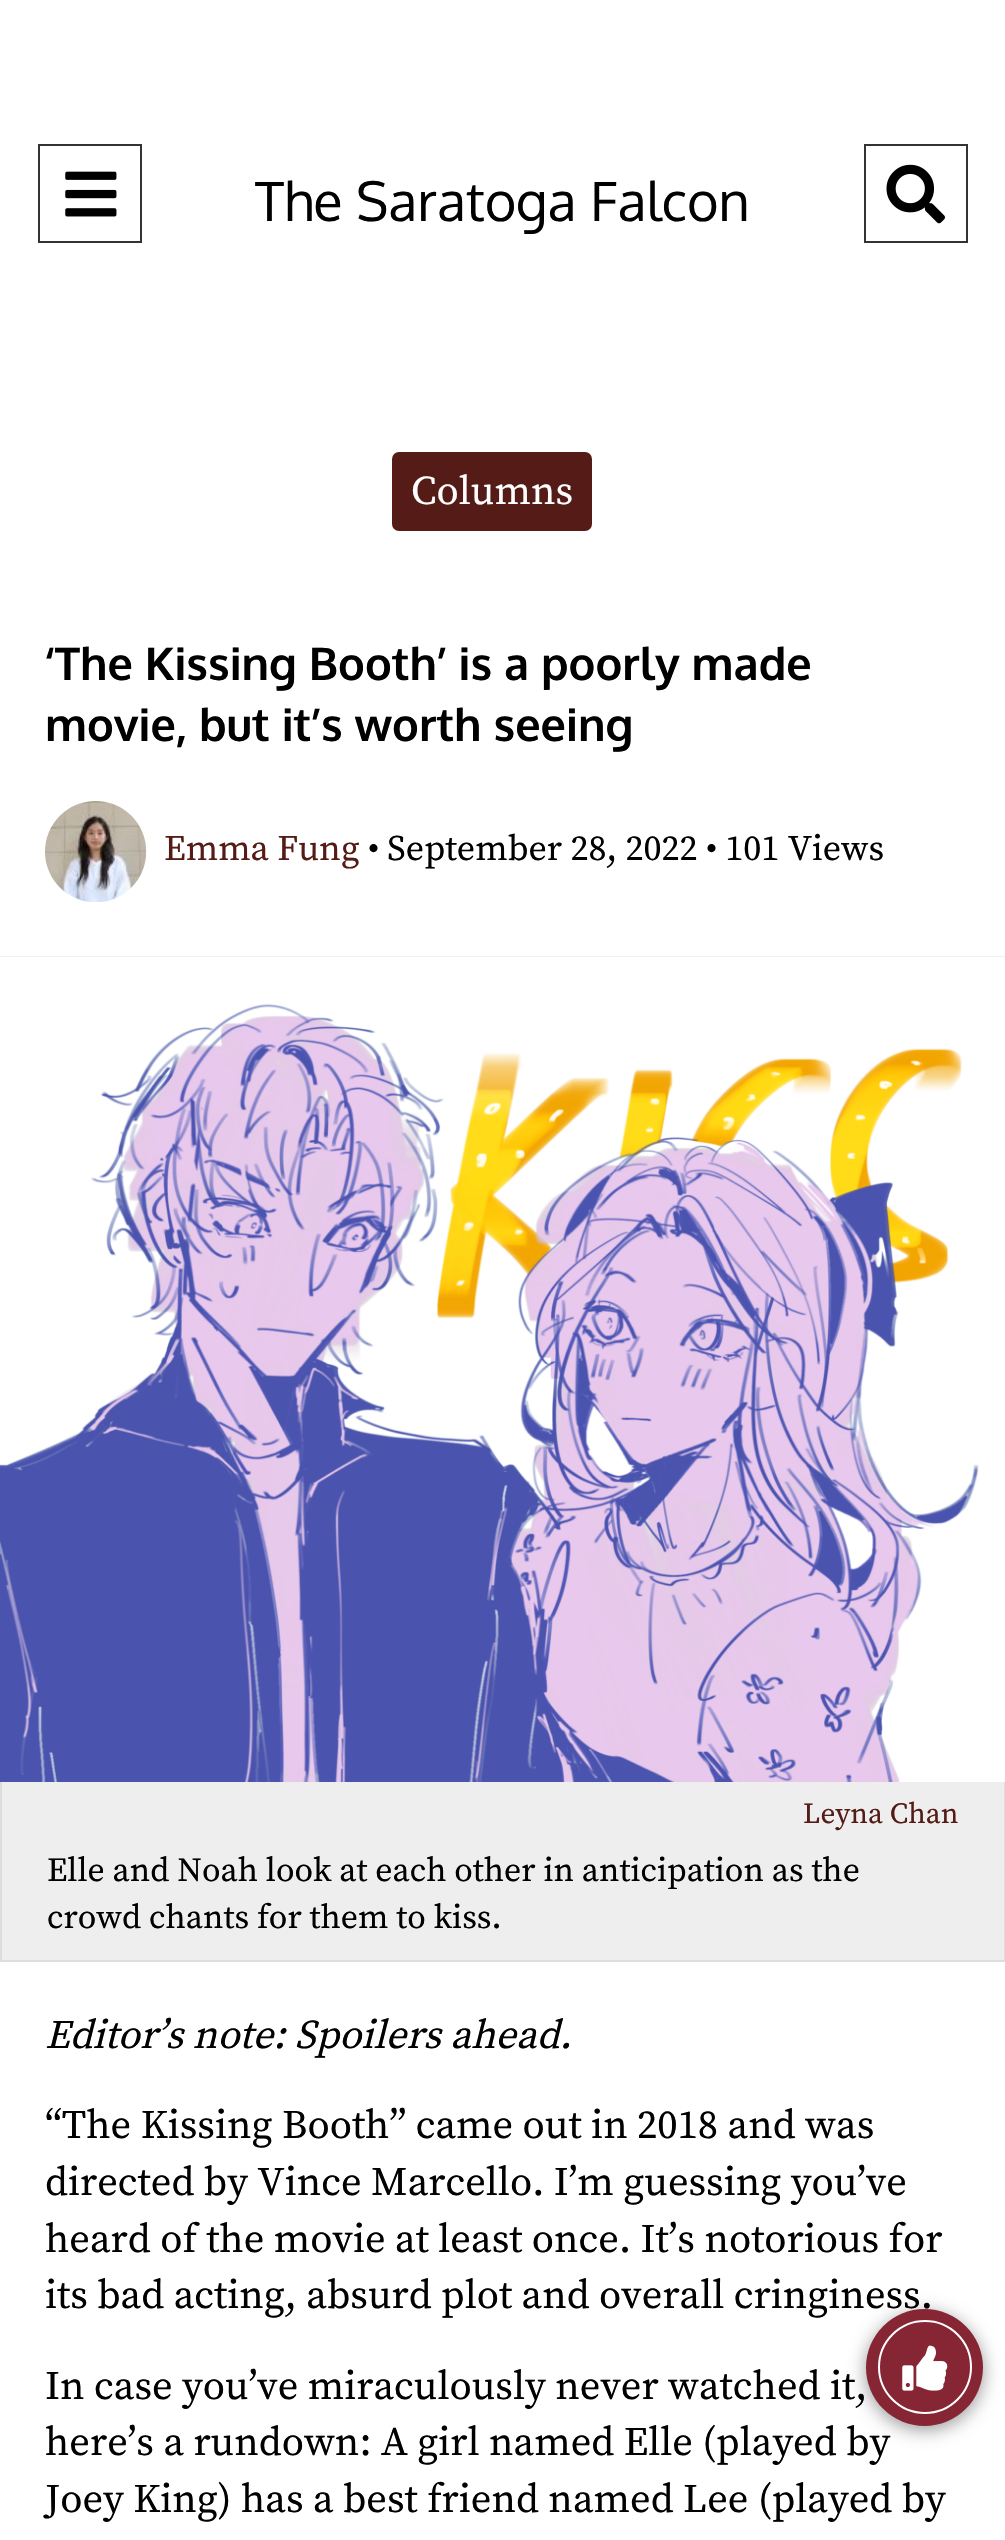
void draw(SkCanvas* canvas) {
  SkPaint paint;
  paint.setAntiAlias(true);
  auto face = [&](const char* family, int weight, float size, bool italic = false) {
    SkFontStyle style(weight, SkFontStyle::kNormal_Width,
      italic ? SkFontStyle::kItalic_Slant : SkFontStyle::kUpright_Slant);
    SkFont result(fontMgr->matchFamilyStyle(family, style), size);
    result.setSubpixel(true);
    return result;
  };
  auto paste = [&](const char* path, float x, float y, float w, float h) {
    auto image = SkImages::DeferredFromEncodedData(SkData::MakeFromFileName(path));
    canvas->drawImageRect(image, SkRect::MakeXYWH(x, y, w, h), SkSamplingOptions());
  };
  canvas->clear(0xffffffff);
  paint.setStroke(true);
  paint.setStrokeWidth(2);
  paint.setColor(0xff333333);
  canvas->drawRect(SkRect::MakeXYWH(39, 145, 102, 97), paint);
  paste("img/1.png", 65, 171, 52, 46);
  canvas->drawRect(SkRect::MakeXYWH(865, 145, 102, 97), paint);
  paste("img/2.png", 886, 164, 59, 60);
  paint.setStroke(false);
  paint.setColor(0xff551b16);
  canvas->drawRoundRect(SkRect::MakeXYWH(392, 452, 200, 79), 7, 7, paint);
  paste("img/3.png", 45, 801, 102, 101);
  paint.setColor(0xffdddddd);
  canvas->drawRect(SkRect::MakeXYWH(0, 956, 1005, 1), paint);
  paste("img/4.png", 0, 956, 1005, 826);
  {
    const struct { float x, y, w, h; SkColor color; } items[] = {
      {2, 1782, 1002, 178, 0xffeeeeee},
      {1004, 1782, 1, 180, 0xffdddddd},
      {0, 1960, 1005, 2, 0xffdddddd},
      {0, 1782, 2, 180, 0xffdddddd},
    };
    for (auto [x, y, w, h, color] : items) {
      paint.setColor(color);
      canvas->drawRect(SkRect::MakeXYWH(x, y, w, h), paint);
    }
  }
  paint.setColor(0x66000000);
  paint.setMaskFilter(SkMaskFilter::MakeBlur(kNormal_SkBlurStyle, 9));
  canvas->drawRoundRect(SkRect::MakeXYWH(866, 2313, 117, 117), 58.5f, 58.5f, paint);
  paint.setMaskFilter(nullptr);
  canvas->save();
  canvas->clipRect(SkRect::MakeXYWH(180, 164, 646, 70));
  auto f0 = face("Oxygen", 400, 54);
  paint.setColor(0xff000000);
  canvas->drawString("The Saratoga Falcon", 255, 221, f0, paint);
  canvas->restore();
  auto f1 = face("Source Serif Pro", 400, 40.5f);
  paint.setColor(0xffffffff);
  canvas->drawString("Columns", 411, 504, f1, paint);
  auto f2 = face("Oxygen", 700, 45);
  paint.setColor(0xff000000);
  canvas->drawString("‘The Kissing Booth’ is a poorly made", 45, 680, f2, paint);
  canvas->drawString("movie, but it’s worth seeing", 45, 741, f2, paint);
  auto f3 = face("Source Serif Pro", 400, 36);
  paint.setColor(0xff551b16);
  canvas->drawString("Emma Fung", 164, 860, f3, paint);
  paint.setColor(0xff000000);
  canvas->drawString("• September 28, 2022 • 101 Views", 368, 860, f3, paint);
  auto f4 = face("Source Serif Pro", 400, 29.25f);
  paint.setColor(0xff551b16);
  canvas->drawString("Leyna Chan", 803, 1823, f4, paint);
  auto f5 = face("Source Serif Pro", 400, 33.75f);
  paint.setColor(0xff000000);
  canvas->drawString("Elle and Noah look at each other in anticipation as the", 47, 1881, f5, paint);
  canvas->drawString("crowd chants for them to kiss.", 47, 1928, f5, paint);
  auto f6 = face("Source Serif Pro", 400, 40.5f, true);
  canvas->drawString("Editor’s note: Spoilers ahead.", 45, 2048, f6, paint);
  {
    const struct { const char* s; float x, y; } items[] = {
      {"“The Kissing Booth” came out in 2018 and was", 45, 2138},
      {"directed by Vince Marcello. I’m guessing you’ve", 45, 2195},
      {"heard of the movie at least once. It’s notorious for", 45, 2252},
      {"its bad acting, absurd plot and overall cringiness.", 45, 2308},
      {"In case you’ve miraculously never watched it,", 45, 2399},
      {"here’s a rundown: A girl named Elle (played by", 45, 2455},
      {"Joey King) has a best friend named Lee (played by", 45, 2512},
    };
    for (auto [s, x, y] : items) {
      canvas->drawString(s, x, y, f1, paint);
    }
  }
  paint.setColor(0xff862635);
  canvas->drawCircle(924.5f, 2367.5f, 58.5f, paint);
  paint.setStroke(true);
  paint.setColor(0xffffffff);
  canvas->drawCircle(925, 2367, 46, paint);
  paste("img/5.png", 902, 2345, 46, 46);
}
